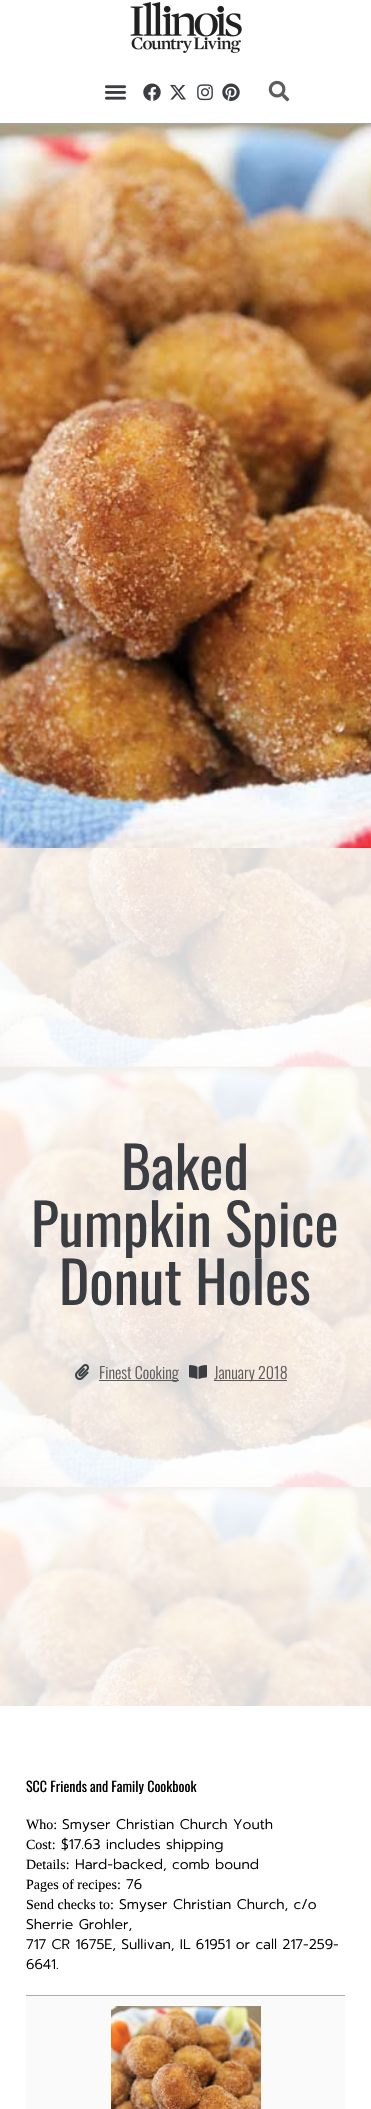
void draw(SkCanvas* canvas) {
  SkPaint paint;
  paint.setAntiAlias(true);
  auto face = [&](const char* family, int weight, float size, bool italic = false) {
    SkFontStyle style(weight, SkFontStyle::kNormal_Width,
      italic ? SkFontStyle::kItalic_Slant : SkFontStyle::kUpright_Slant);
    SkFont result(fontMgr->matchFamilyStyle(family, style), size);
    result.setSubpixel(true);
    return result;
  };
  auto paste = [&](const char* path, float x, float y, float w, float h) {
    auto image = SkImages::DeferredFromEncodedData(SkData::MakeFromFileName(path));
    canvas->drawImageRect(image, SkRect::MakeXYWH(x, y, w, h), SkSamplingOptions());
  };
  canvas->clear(0xffffffff);
  paint.setColor(0xffa5a5a5);
  canvas->drawRect(SkRect::MakeXYWH(0, 123, 371, 1), paint);
  paste("img/1.png", 130, 2, 112, 51);
  paste("img/2.png", 105, 85, 21, 15);
  paste("img/3.png", 143, 83, 18, 18);
  paste("img/4.png", 170, 84, 16, 16);
  paste("img/5.png", 197, 84, 16, 17);
  paste("img/6.png", 222, 83, 18, 18);
  paste("img/7.png", 268, 80, 22, 22);
  paste("img/8.png", 0, 124, 371, 724);
  paste("img/9.png", 0, 848, 371, 858);
  paste("img/10.png", 75, 1364, 14, 16);
  paint.setColor(0xff5f5b5b);
  canvas->drawRect(SkRect::MakeXYWH(99, 1380, 80, 1), paint);
  paste("img/11.png", 189, 1365, 18, 14);
  {
    const struct { float x, y, w, h; SkColor color; } items[] = {
      {214, 1380, 73, 1, 0xff5f5b5b},
      {26, 1996, 319, 113, 0xfffafafa},
      {26, 1995, 319, 1, 0xffaaaaaa},
    };
    for (auto [x, y, w, h, color] : items) {
      paint.setColor(color);
      canvas->drawRect(SkRect::MakeXYWH(x, y, w, h), paint);
    }
  }
  paste("img/12.png", 111, 2006, 150, 103);
  auto f0 = face("Oswald", 400, 57.5f);
  paint.setColor(0xff3a3e42);
  {
    const struct { const char* s; float x, y; } items[] = {
      {"Baked", 121, 1190},
      {"Pumpkin Spice", 31, 1247},
      {"Donut Holes", 59, 1305},
    };
    for (auto [s, x, y] : items) {
      canvas->drawString(s, x, y, f0, paint);
    }
  }
  auto f1 = face("Oswald", 300, 16);
  paint.setColor(0xff5f5b5b);
  canvas->drawString("Finest Cooking", 99, 1379, f1, paint);
  canvas->drawString("January 2018", 214, 1379, f1, paint);
  auto f2 = face("Oswald", 400, 14);
  paint.setColor(0xff000000);
  canvas->drawString("SCC Friends and Family Cookbook", 26, 1792, f2, paint);
  auto f3 = face("Liberation Serif", 400, 14);
  canvas->drawString("Who:", 26, 1829, f3, paint);
  auto f4 = face("Prompt", 300, 14);
  canvas->drawString("Smyser Christian Church Youth", 62, 1829, f4, paint);
  canvas->drawString("Cost:", 26, 1849, f3, paint);
  canvas->drawString("$17.63 includes shipping", 61, 1849, f4, paint);
  canvas->drawString("Details:", 26, 1869, f3, paint);
  canvas->drawString("Hard-backed, comb bound", 75, 1869, f4, paint);
  canvas->drawString("Pages of recipes:", 26, 1889, f3, paint);
  canvas->drawString("76", 126, 1889, f4, paint);
  canvas->drawString("Send checks to:", 26, 1909, f3, paint);
  {
    const struct { const char* s; float x, y; } items[] = {
      {"Smyser Christian Church, c/o", 119, 1909},
      {"Sherrie Grohler,", 26, 1929},
      {"717 CR 1675E, Sullivan, IL 61951 or call 217-259-", 26, 1949},
      {"6641.", 26, 1969},
    };
    for (auto [s, x, y] : items) {
      canvas->drawString(s, x, y, f4, paint);
    }
  }
}
